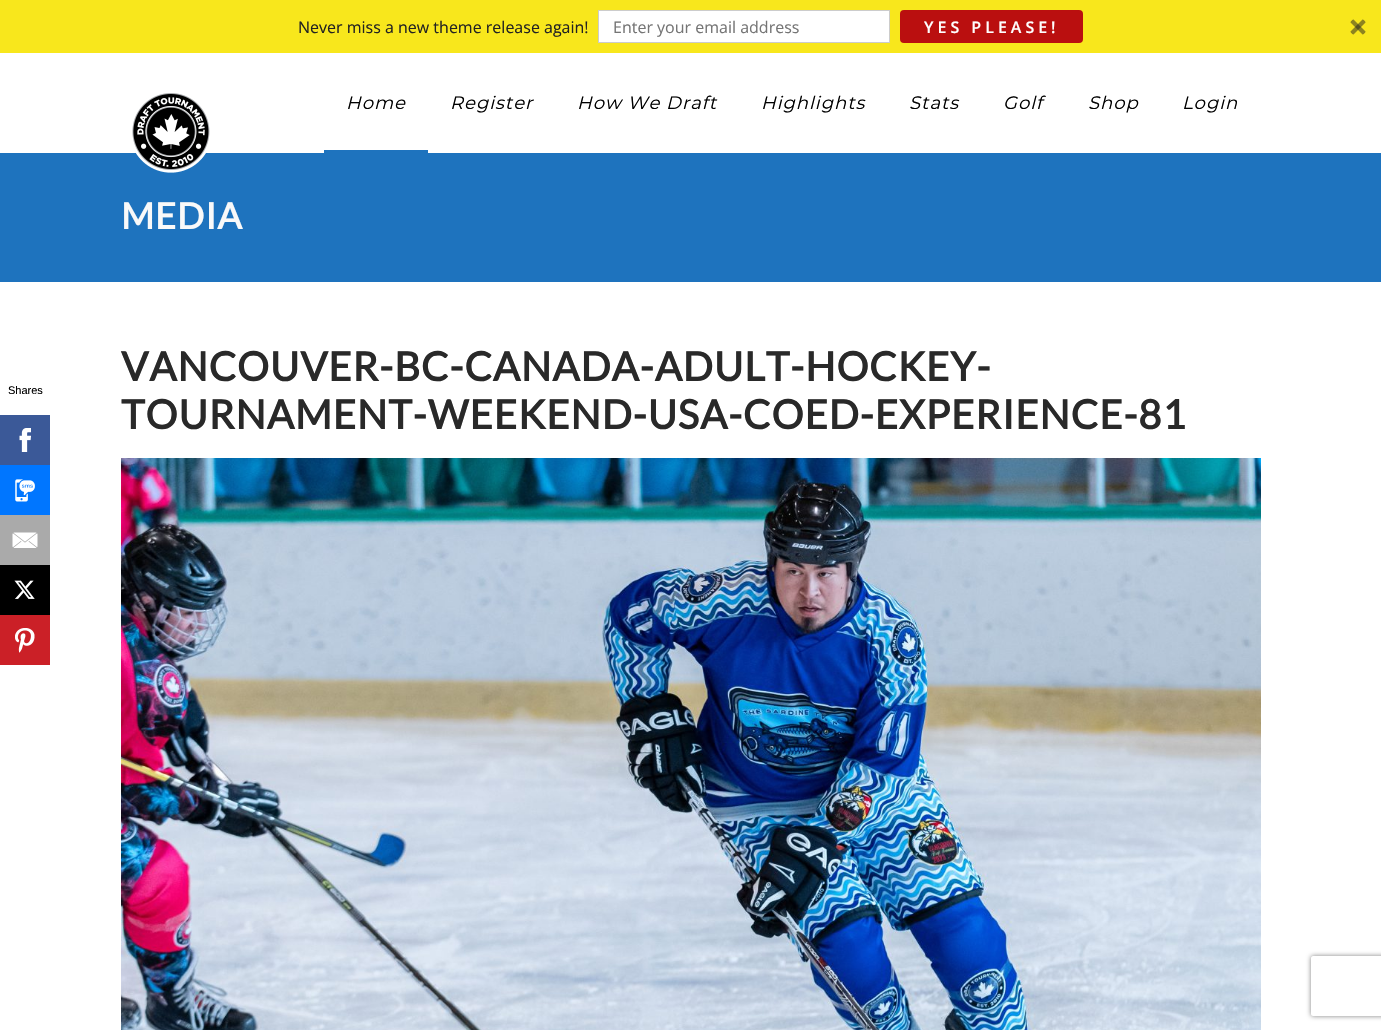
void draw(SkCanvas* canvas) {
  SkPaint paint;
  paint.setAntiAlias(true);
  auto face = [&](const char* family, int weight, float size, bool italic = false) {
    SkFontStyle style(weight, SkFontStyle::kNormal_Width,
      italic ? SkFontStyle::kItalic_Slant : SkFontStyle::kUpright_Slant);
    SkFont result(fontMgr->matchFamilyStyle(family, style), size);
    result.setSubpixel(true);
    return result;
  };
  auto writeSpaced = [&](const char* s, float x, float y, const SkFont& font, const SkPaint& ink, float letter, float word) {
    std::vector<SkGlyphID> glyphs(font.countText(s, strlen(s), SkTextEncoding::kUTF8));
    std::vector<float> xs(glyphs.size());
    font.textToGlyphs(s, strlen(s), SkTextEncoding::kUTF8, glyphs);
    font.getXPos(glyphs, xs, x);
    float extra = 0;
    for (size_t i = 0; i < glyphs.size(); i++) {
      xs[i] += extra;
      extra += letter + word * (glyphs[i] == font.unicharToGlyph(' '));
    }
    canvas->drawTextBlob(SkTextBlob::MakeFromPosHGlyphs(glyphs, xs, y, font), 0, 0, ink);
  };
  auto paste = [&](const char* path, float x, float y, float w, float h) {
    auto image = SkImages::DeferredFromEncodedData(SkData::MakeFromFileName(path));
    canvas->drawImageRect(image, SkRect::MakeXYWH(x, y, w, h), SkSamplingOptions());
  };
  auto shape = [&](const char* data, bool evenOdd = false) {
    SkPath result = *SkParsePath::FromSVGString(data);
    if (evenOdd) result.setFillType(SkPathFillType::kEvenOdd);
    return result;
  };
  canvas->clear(0xffffffff);
  paint.setColor(0xfff8e71c);
  canvas->drawRect(SkRect::MakeXYWH(0, 0, 1381, 53), paint);
  paint.setColor(0xffffffff);
  canvas->drawRect(SkRect::MakeXYWH(598.5f, 10.5f, 291, 32), paint);
  paint.setStroke(true);
  paint.setStrokeWidth(1);
  paint.setColor(0xffcccccc);
  canvas->drawRect(SkRect::MakeXYWH(598.5f, 10.5f, 291, 32), paint);
  paint.setStroke(false);
  paint.setColor(0xffba0f0f);
  canvas->drawRoundRect(SkRect::MakeXYWH(900, 10, 183, 33), 4, 4, paint);
  paste("img/1.png", 1350, 19, 16, 16);
  paint.setColor(0xff3b5998);
  canvas->drawRect(SkRect::MakeXYWH(0, 415, 50, 50), paint);
  paste("img/2.png", 19, 428, 12, 24);
  paint.setColor(0xff0076ff);
  canvas->drawRect(SkRect::MakeXYWH(0, 465, 50, 50), paint);
  paste("img/3.png", 15, 479, 20, 23);
  paint.setColor(0xffaaaaaa);
  canvas->drawRect(SkRect::MakeXYWH(0, 515, 50, 50), paint);
  paste("img/4.png", 12, 532, 26, 16);
  paint.setColor(0xff000000);
  canvas->drawRect(SkRect::MakeXYWH(0, 565, 50, 50), paint);
  paste("img/5.png", 14, 580, 21, 19);
  paint.setColor(0xffcb2027);
  canvas->drawRect(SkRect::MakeXYWH(0, 615, 50, 50), paint);
  paste("img/6.png", 15, 628, 20, 25);
  paint.setColor(0xff1e73be);
  canvas->drawRect(SkRect::MakeXYWH(0, 153, 1381, 129), paint);
  paste("img/7.png", 132, 93, 78, 80);
  canvas->drawRect(SkRect::MakeXYWH(324, 150, 104, 3), paint);
  paste("img/8.png", 121, 458, 1140, 572);
  canvas->save();
  canvas->clipPath(shape("M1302 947H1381V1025H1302ZM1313 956H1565C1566 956 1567 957 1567 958V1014C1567 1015 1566 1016 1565 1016H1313C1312 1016 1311 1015 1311 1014V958C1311 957 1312 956 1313 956Z", true), true);
  paint.setColor(0xff808080);
  paint.setMaskFilter(SkMaskFilter::MakeBlur(kNormal_SkBlurStyle, 2.5f));
  canvas->drawRoundRect(SkRect::MakeXYWH(1311, 956, 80, 60), 2, 2, paint);
  paint.setMaskFilter(nullptr);
  canvas->restore();
  auto f0 = face("Open Sans", 400, 16);
  paint.setColor(0xff222222);
  canvas->drawString("Never miss a new theme release again!", 298, 33, f0, paint);
  paint.setColor(0xff757575);
  canvas->drawString("Enter your email address", 613, 33, f0, paint);
  auto f1 = face("Open Sans", 600, 16);
  paint.setColor(0xffffffff);
  writeSpaced("YES PLEASE!", 924, 33, f1, paint, 4, 0);
  auto f2 = face("Liberation Sans", 400, 11);
  paint.setColor(0xff000000);
  canvas->drawString("Shares", 8, 394, f2, paint);
  auto f3 = face("Montserrat", 100, 18, true);
  {
    const struct { const char* s; float x, y; } items[] = {
      {"Home", 346, 109},
      {"Register", 450, 109},
      {"How We Draft", 577, 109},
      {"Highlights", 761, 109},
      {"Stats", 909, 109},
      {"Golf", 1003, 109},
      {"Shop", 1088, 109},
      {"Login", 1182, 109},
    };
    for (auto [s, x, y] : items) {
      writeSpaced(s, x, y, f3, paint, 1, 0);
    }
  }
  auto f4 = face("Lato", 700, 36);
  paint.setColor(0xfff9f9f9);
  writeSpaced("MEDIA", 121, 229, f4, paint, 1, 0);
  auto f5 = face("Lato", 700, 40);
  paint.setColor(0xff292929);
  writeSpaced("VANCOUVER-BC-CANADA-ADULT-HOCKEY-", 121, 381, f5, paint, 1, 0);
  writeSpaced("TOURNAMENT-WEEKEND-USA-COED-EXPERIENCE-81", 121, 429, f5, paint, 1, 0);
}
